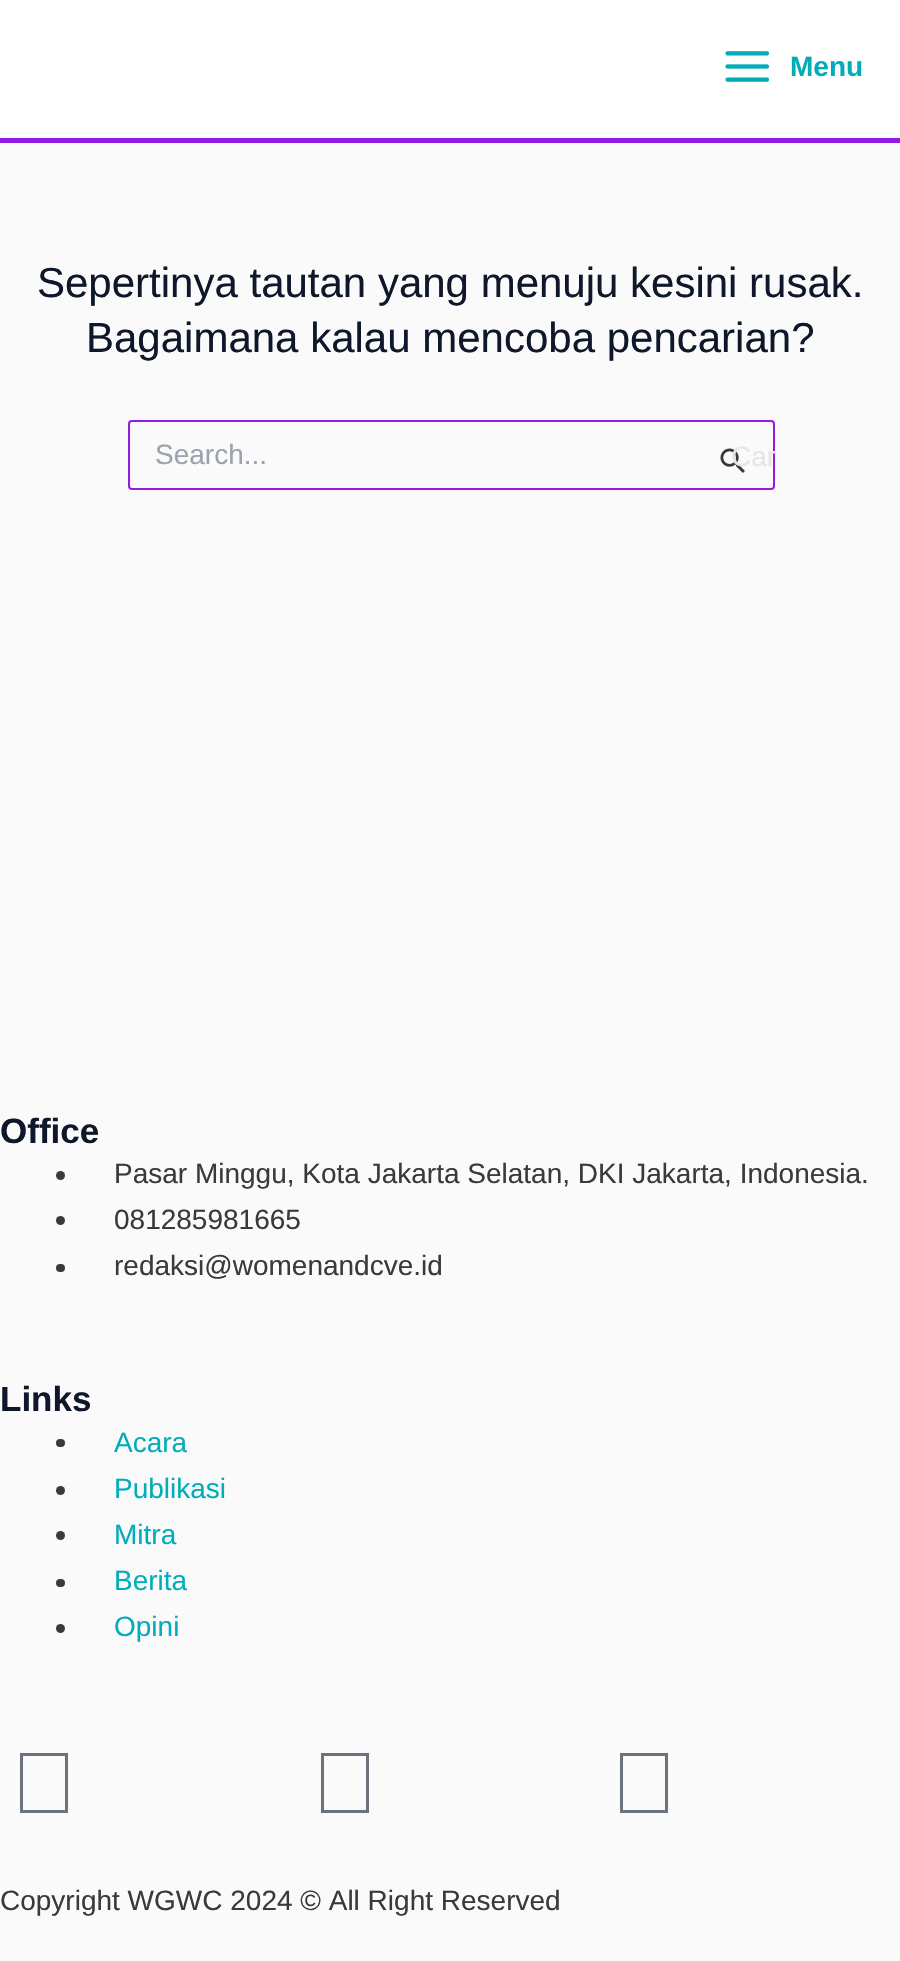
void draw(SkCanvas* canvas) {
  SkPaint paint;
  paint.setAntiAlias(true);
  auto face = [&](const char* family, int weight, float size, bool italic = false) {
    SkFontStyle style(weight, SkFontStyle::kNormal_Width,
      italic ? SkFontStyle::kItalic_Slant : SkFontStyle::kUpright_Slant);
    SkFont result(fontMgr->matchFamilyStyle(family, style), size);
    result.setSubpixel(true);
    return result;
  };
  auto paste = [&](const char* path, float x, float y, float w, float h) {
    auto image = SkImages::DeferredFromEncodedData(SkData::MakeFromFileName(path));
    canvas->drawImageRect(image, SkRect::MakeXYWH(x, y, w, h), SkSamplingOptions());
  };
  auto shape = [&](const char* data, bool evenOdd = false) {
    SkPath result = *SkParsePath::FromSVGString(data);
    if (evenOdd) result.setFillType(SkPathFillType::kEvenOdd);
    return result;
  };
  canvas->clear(0xfffafafa);
  paint.setColor(0xffffffff);
  canvas->drawRect(SkRect::MakeXYWH(0, 0, 900, 144), paint);
  paint.setColor(0xff951ae2);
  canvas->drawRect(SkRect::MakeXYWH(0, 138, 900, 5), paint);
  paste("img/1.png", 725, 51, 45, 31);
  paint.setStroke(true);
  paint.setStrokeWidth(2);
  canvas->drawRoundRect(SkRect::MakeXYWH(129, 421, 645, 68), 3, 3, paint);
  paste("img/2.png", 720, 448, 25, 25);
  paint.setStroke(false);
  paint.setColor(0xff3a3a3a);
  canvas->drawCircle(60.5f, 1175.5f, 4.5f, paint);
  canvas->drawCircle(60.5f, 1220.5f, 4.5f, paint);
  canvas->drawRoundRect(SkRect::MakeXYWH(56, 1264, 9, 8), 4, 4, paint);
  canvas->drawRoundRect(SkRect::MakeXYWH(56, 1439, 9, 8), 4, 4, paint);
  canvas->drawCircle(60.5f, 1490.5f, 4.5f, paint);
  canvas->drawCircle(60.5f, 1535.5f, 4.5f, paint);
  canvas->drawRoundRect(SkRect::MakeXYWH(56, 1579, 9, 8), 4, 4, paint);
  canvas->drawCircle(60.5f, 1628.5f, 4.5f, paint);
  paint.setColor(0xff69727d);
  canvas->drawPath(shape("M20 1753H68V1813H20ZM23 1756V1810H65V1756Z"), paint);
  canvas->drawPath(shape("M321 1753H369V1813H321ZM324 1756V1810H366V1756Z"), paint);
  canvas->drawPath(shape("M620 1753H668V1813H620ZM623 1756V1810H665V1756Z"), paint);
  auto f0 = face("Liberation Sans", 700, 28);
  paint.setColor(0xff01adb9);
  canvas->drawString("Menu", 790, 76, f0, paint);
  auto f1 = face("Liberation Sans", 400, 42);
  paint.setColor(0xff0f172a);
  canvas->drawString("Sepertinya tautan yang menuju kesini rusak.", 37, 297, f1, paint);
  canvas->drawString("Bagaimana kalau mencoba pencarian?", 86, 352, f1, paint);
  auto f2 = face("Liberation Sans", 400, 28);
  paint.setColor(0xff9ca3af);
  canvas->drawString("Search...", 155, 464, f2, paint);
  canvas->save();
  canvas->clipPath(shape("M701 420H771C773 420 775 422 775 424V490C775 492 773 494 771 494H701C699 494 697 492 697 490V424C697 422 699 420 701 420Z"), true);
  paint.setColor(0xffe8e5e9);
  canvas->drawString("Car", 731, 466, f2, paint);
  canvas->restore();
  auto f3 = face("Liberation Sans", 700, 35);
  paint.setColor(0xff0f172a);
  canvas->drawString("Office", 0, 1143, f3, paint);
  paint.setColor(0xff3a3a3a);
  {
    const struct { const char* s; float x, y; } items[] = {
      {"Pasar Minggu, Kota Jakarta Selatan, DKI Jakarta, Indonesia.", 114, 1183},
      {"081285981665", 114, 1229},
      {"redaksi@womenandcve.id", 114, 1275},
    };
    for (auto [s, x, y] : items) {
      canvas->drawString(s, x, y, f2, paint);
    }
  }
  paint.setColor(0xff0f172a);
  canvas->drawString("Links", 0, 1411, f3, paint);
  paint.setColor(0xff01adb9);
  {
    const struct { const char* s; float x, y; } items[] = {
      {"Acara", 114, 1452},
      {"Publikasi", 114, 1498},
      {"Mitra", 114, 1544},
      {"Berita", 114, 1590},
      {"Opini", 114, 1636},
    };
    for (auto [s, x, y] : items) {
      canvas->drawString(s, x, y, f2, paint);
    }
  }
  paint.setColor(0xff3a3a3a);
  canvas->drawString("Copyright WGWC 2024 © All Right Reserved", 0, 1910, f2, paint);
}
